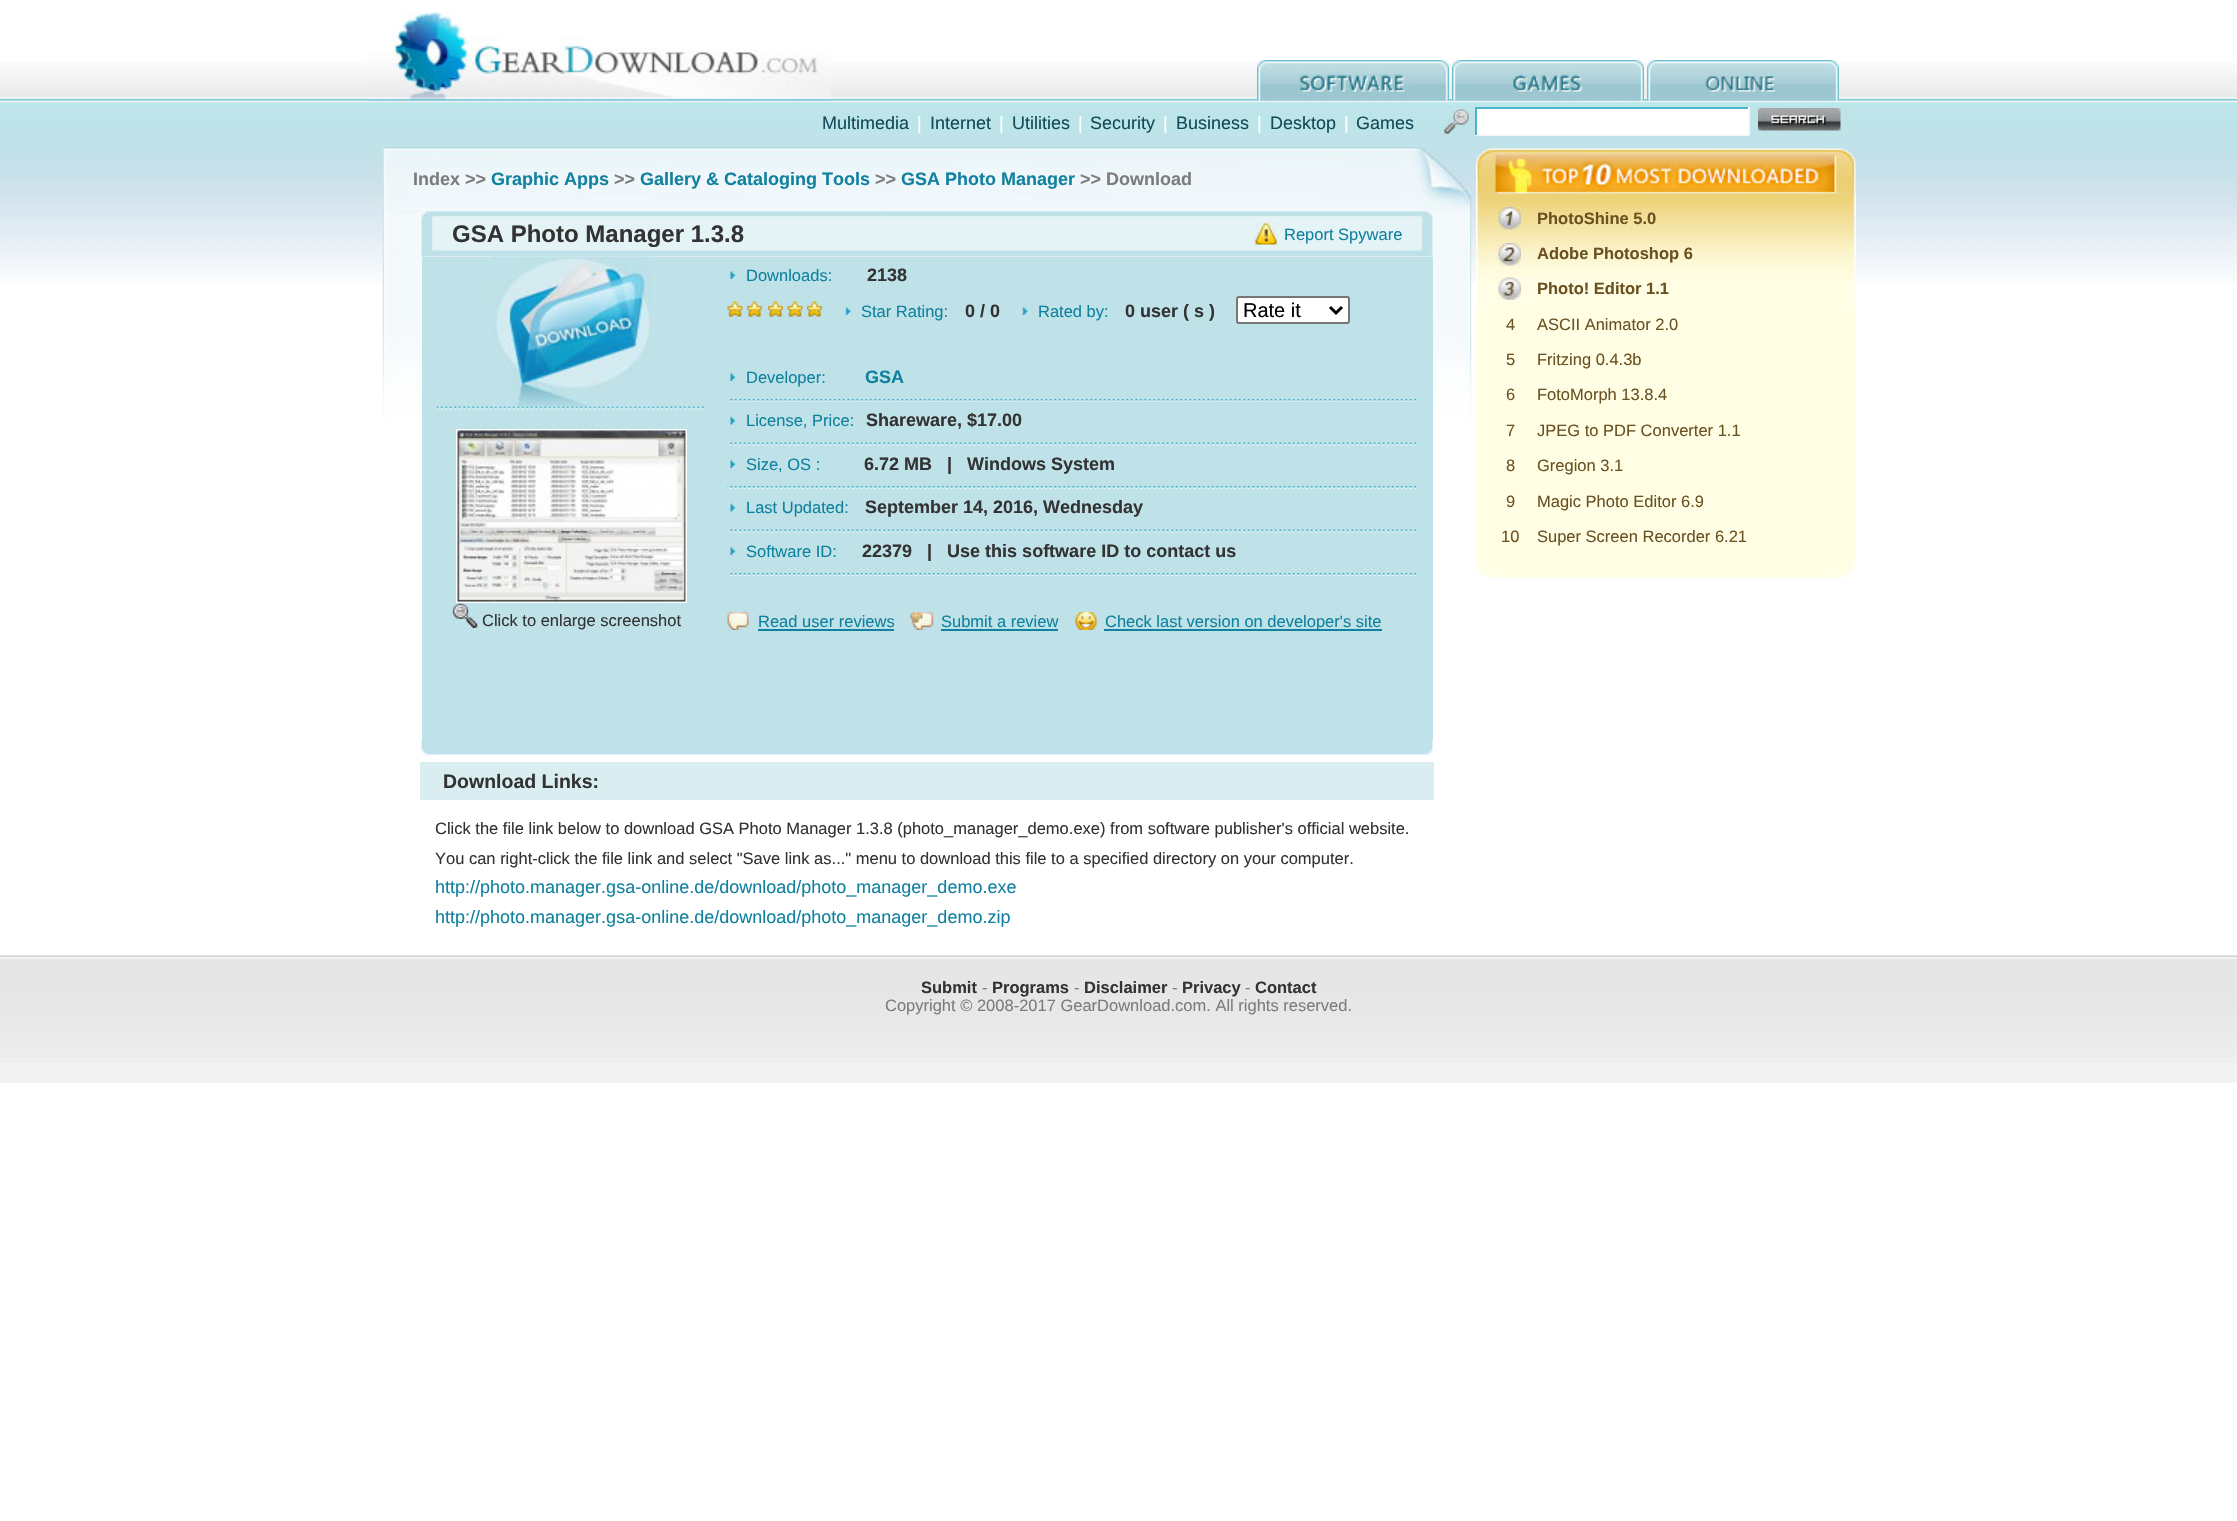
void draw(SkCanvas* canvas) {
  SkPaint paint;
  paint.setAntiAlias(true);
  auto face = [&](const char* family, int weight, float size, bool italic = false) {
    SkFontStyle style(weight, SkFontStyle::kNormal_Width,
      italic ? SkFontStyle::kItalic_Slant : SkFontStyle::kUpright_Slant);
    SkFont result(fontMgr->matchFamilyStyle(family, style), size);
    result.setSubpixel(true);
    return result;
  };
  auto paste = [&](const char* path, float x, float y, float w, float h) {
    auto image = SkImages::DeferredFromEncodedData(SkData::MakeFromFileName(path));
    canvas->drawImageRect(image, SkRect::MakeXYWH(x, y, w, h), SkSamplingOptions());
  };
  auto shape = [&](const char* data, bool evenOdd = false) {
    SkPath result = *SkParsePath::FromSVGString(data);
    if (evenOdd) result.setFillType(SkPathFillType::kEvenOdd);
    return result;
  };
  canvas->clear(0xffffffff);
  paste("img/1.png", 0, 63, 2237, 220);
  paste("img/2.png", 367, 11, 464, 90);
  paste("img/3.png", 1257, 60, 192, 41);
  paste("img/4.png", 1452, 60, 192, 41);
  paste("img/5.png", 1647, 60, 192, 41);
  paste("img/6.png", 1444, 108, 25, 27);
  {
    const struct { float x, y, w, h; SkColor color; } items[] = {
      {1477, 109, 271, 25, 0xffffffff},
      {1475, 107, 274, 2, 0xff4cb3c8},
      {1748, 107, 2, 28, 0xfff7f7f7},
      {1475, 134, 274, 2, 0xfff7f7f7},
      {1475, 107, 2, 28, 0xff4cb3c8},
    };
    for (auto [x, y, w, h, color] : items) {
      paint.setColor(color);
      canvas->drawRect(SkRect::MakeXYWH(x, y, w, h), paint);
    }
  }
  paste("img/7.png", 1758, 108, 83, 23);
  paste("img/8.png", 382, 147, 1090, 65);
  paste("img/9.png", 382, 211, 1090, 209);
  paste("img/10.png", 421, 211, 1012, 46);
  paste("img/11.png", 1254, 222, 24, 24);
  paint.setColor(0xffbfe2e9);
  canvas->drawRect(SkRect::MakeXYWH(422, 257, 1011, 484), paint);
  paste("img/13.png", 436, 406, 271, 4);
  paste("img/12.png", 492, 256, 159, 151);
  paint.setStroke(true);
  paint.setStrokeWidth(2);
  paint.setColor(0xffffffff);
  canvas->drawRect(SkRect::MakeXYWH(457, 430, 229, 172), paint);
  paste("img/14.png", 457, 430, 229, 172);
  paste("img/15.png", 451, 603, 28, 26);
  paste("img/16.png", 727, 270, 10, 9);
  paste("img/17.png", 727, 301, 16, 16);
  paste("img/18.png", 747, 301, 15, 16);
  paste("img/19.png", 768, 301, 15, 16);
  paste("img/20.png", 787, 301, 16, 16);
  paste("img/19.png", 807, 301, 15, 16);
  paste("img/21.png", 843, 306, 9, 9);
  paste("img/22.png", 1020, 306, 9, 9);
  paint.setStroke(false);
  canvas->drawRoundRect(SkRect::MakeXYWH(1237, 297, 112, 26), 2, 2, paint);
  paint.setStroke(true);
  paint.setColor(0xff767676);
  canvas->drawRoundRect(SkRect::MakeXYWH(1237, 297, 112, 26), 2, 2, paint);
  paint.setStrokeWidth(3);
  paint.setColor(0xff000000);
  canvas->drawPath(shape("M1330 307L1336 313L1342 307"), paint);
  paste("img/23.png", 727, 399, 691, 3);
  paste("img/16.png", 727, 372, 10, 9);
  paste("img/24.png", 727, 442, 691, 4);
  paste("img/25.png", 727, 415, 10, 10);
  paste("img/26.png", 727, 486, 691, 3);
  paste("img/16.png", 727, 459, 10, 9);
  paste("img/24.png", 727, 529, 691, 4);
  paste("img/25.png", 727, 502, 10, 10);
  paste("img/27.png", 727, 573, 691, 3);
  paste("img/16.png", 727, 546, 10, 9);
  paste("img/28.png", 727, 612, 22, 18);
  paint.setStroke(false);
  paint.setColor(0xff10819e);
  canvas->drawRect(SkRect::MakeXYWH(758, 629, 136, 2), paint);
  paste("img/29.png", 910, 612, 25, 18);
  canvas->drawRect(SkRect::MakeXYWH(941, 629, 117, 2), paint);
  paste("img/30.png", 1074, 612, 24, 18);
  canvas->drawRect(SkRect::MakeXYWH(1104, 629, 278, 2), paint);
  paste("img/31.png", 421, 741, 1012, 14);
  paint.setColor(0xffdaeef2);
  canvas->drawRect(SkRect::MakeXYWH(420, 762, 1014, 38), paint);
  paste("img/32.png", 1476, 147, 380, 47);
  paint.setColor(0xfffffee4);
  canvas->drawRect(SkRect::MakeXYWH(1476, 194, 380, 369), paint);
  paste("img/33.png", 1476, 193, 380, 115);
  paste("img/34.png", 1498, 207, 23, 23);
  paste("img/35.png", 1498, 243, 23, 23);
  paste("img/36.png", 1498, 277, 23, 23);
  paste("img/37.png", 1476, 562, 380, 16);
  paint.setColor(0xfff3f3f3);
  canvas->drawRect(SkRect::MakeXYWH(0, 1063, 2237, 20), paint);
  paste("img/38.png", 0, 955, 2237, 108);
  auto f0 = face("Liberation Sans", 400, 18);
  paint.setColor(0xff124c59);
  canvas->drawString("Multimedia", 822, 129, f0, paint);
  paint.setColor(0xffffffff);
  canvas->drawString("|", 917, 129, f0, paint);
  paint.setColor(0xff124c59);
  canvas->drawString("Internet", 930, 129, f0, paint);
  paint.setColor(0xffffffff);
  canvas->drawString("|", 999, 129, f0, paint);
  paint.setColor(0xff124c59);
  canvas->drawString("Utilities", 1012, 129, f0, paint);
  paint.setColor(0xffffffff);
  canvas->drawString("|", 1078, 129, f0, paint);
  paint.setColor(0xff124c59);
  canvas->drawString("Security", 1090, 129, f0, paint);
  paint.setColor(0xffffffff);
  canvas->drawString("|", 1163, 129, f0, paint);
  paint.setColor(0xff124c59);
  canvas->drawString("Business", 1176, 129, f0, paint);
  paint.setColor(0xffffffff);
  canvas->drawString("|", 1257, 129, f0, paint);
  paint.setColor(0xff124c59);
  canvas->drawString("Desktop", 1270, 129, f0, paint);
  paint.setColor(0xffffffff);
  canvas->drawString("|", 1344, 129, f0, paint);
  paint.setColor(0xff124c59);
  canvas->drawString("Games", 1356, 129, f0, paint);
  auto f1 = face("Liberation Sans", 700, 18);
  paint.setColor(0xff7c7c7c);
  canvas->drawString("Index >>", 413, 185, f1, paint);
  paint.setColor(0xff10819e);
  canvas->drawString("Graphic Apps", 491, 185, f1, paint);
  paint.setColor(0xff7c7c7c);
  canvas->drawString(">>", 614, 185, f1, paint);
  paint.setColor(0xff10819e);
  canvas->drawString("Gallery & Cataloging Tools", 640, 185, f1, paint);
  paint.setColor(0xff7c7c7c);
  canvas->drawString(">>", 875, 185, f1, paint);
  paint.setColor(0xff10819e);
  canvas->drawString("GSA Photo Manager", 901, 185, f1, paint);
  paint.setColor(0xff7c7c7c);
  canvas->drawString(">> Download", 1080, 185, f1, paint);
  auto f2 = face("Liberation Sans", 700, 24);
  paint.setColor(0xff333333);
  canvas->drawString("GSA Photo Manager 1.3.8", 452, 242, f2, paint);
  auto f3 = face("Liberation Sans", 400, 16.5f);
  paint.setColor(0xff10819e);
  canvas->drawString("Report Spyware", 1284, 240, f3, paint);
  paint.setColor(0xff333333);
  canvas->drawString("Click to enlarge screenshot", 482, 626, f3, paint);
  paint.setColor(0xff10819e);
  canvas->drawString("Downloads:", 746, 281, f3, paint);
  paint.setColor(0xff333333);
  canvas->drawString("2138", 867, 281, f1, paint);
  paint.setColor(0xff10819e);
  canvas->drawString("Star Rating:", 861, 317, f3, paint);
  paint.setColor(0xff333333);
  canvas->drawString("0 / 0", 965, 317, f1, paint);
  paint.setColor(0xff10819e);
  canvas->drawString("Rated by:", 1038, 317, f3, paint);
  paint.setColor(0xff333333);
  canvas->drawString("0 user ( s )", 1125, 317, f1, paint);
  auto f4 = face("Liberation Sans", 400, 20);
  paint.setColor(0xff000000);
  canvas->drawString("Rate it", 1243, 317, f4, paint);
  paint.setColor(0xff10819e);
  canvas->drawString("Developer:", 746, 383, f3, paint);
  canvas->drawString("GSA", 865, 383, f1, paint);
  canvas->drawString("License, Price:", 746, 426, f3, paint);
  paint.setColor(0xff333333);
  canvas->drawString("Shareware, $17.00", 866, 426, f1, paint);
  paint.setColor(0xff10819e);
  canvas->drawString("Size, OS :", 746, 470, f3, paint);
  paint.setColor(0xff333333);
  canvas->drawString("6.72 MB   |   Windows System", 864, 470, f1, paint);
  paint.setColor(0xff10819e);
  canvas->drawString("Last Updated:", 746, 513, f3, paint);
  paint.setColor(0xff333333);
  canvas->drawString("September 14, 2016, Wednesday", 865, 513, f1, paint);
  paint.setColor(0xff10819e);
  canvas->drawString("Software ID:", 746, 557, f3, paint);
  paint.setColor(0xff333333);
  canvas->drawString("22379   |   Use this software ID to contact us", 862, 557, f1, paint);
  paint.setColor(0xff10819e);
  {
    const struct { const char* s; float x, y; } items[] = {
      {"Read user reviews", 758, 627},
      {"Submit a review", 941, 627},
      {"Check last version on developer's site", 1105, 627},
    };
    for (auto [s, x, y] : items) {
      canvas->drawString(s, x, y, f3, paint);
    }
  }
  auto f5 = face("Liberation Sans", 700, 19.5f);
  paint.setColor(0xff333333);
  canvas->drawString("Download Links:", 443, 788, f5, paint);
  canvas->drawString("Click the file link below to download GSA Photo Manager 1.3.8 (photo_manager_demo.exe) from software publisher's official website.", 435, 834, f3, paint);
  canvas->drawString("You can right-click the file link and select \"Save link as...\" menu to download this file to a specified directory on your computer.", 435, 864, f3, paint);
  paint.setColor(0xff10819e);
  canvas->drawString("http://photo.manager.gsa-online.de/download/photo_manager_demo.exe", 435, 893, f0, paint);
  canvas->drawString("http://photo.manager.gsa-online.de/download/photo_manager_demo.zip", 435, 923, f0, paint);
  auto f6 = face("Liberation Sans", 700, 16.5f);
  paint.setColor(0xff6a5122);
  {
    const struct { const char* s; float x, y; } items[] = {
      {"PhotoShine 5.0", 1537, 224},
      {"Adobe Photoshop 6", 1537, 259},
      {"Photo! Editor 1.1", 1537, 294},
    };
    for (auto [s, x, y] : items) {
      canvas->drawString(s, x, y, f6, paint);
    }
  }
  {
    const struct { const char* s; float x, y; } items[] = {
      {"4", 1506, 330},
      {"ASCII Animator 2.0", 1537, 330},
      {"5", 1506, 365},
      {"Fritzing 0.4.3b", 1537, 365},
      {"6", 1506, 400},
      {"FotoMorph 13.8.4", 1537, 400},
      {"7", 1506, 436},
      {"JPEG to PDF Converter 1.1", 1537, 436},
      {"8", 1506, 471},
      {"Gregion 3.1", 1537, 471},
      {"9", 1506, 507},
      {"Magic Photo Editor 6.9", 1537, 507},
      {"10", 1501, 542},
      {"Super Screen Recorder 6.21", 1537, 542},
    };
    for (auto [s, x, y] : items) {
      canvas->drawString(s, x, y, f3, paint);
    }
  }
  paint.setColor(0xff333333);
  canvas->drawString("Submit", 921, 993, f6, paint);
  paint.setColor(0xff7c7c7c);
  canvas->drawString("-", 982, 993, f3, paint);
  paint.setColor(0xff333333);
  canvas->drawString("Programs", 992, 993, f6, paint);
  paint.setColor(0xff7c7c7c);
  canvas->drawString("-", 1074, 993, f3, paint);
  paint.setColor(0xff333333);
  canvas->drawString("Disclaimer", 1084, 993, f6, paint);
  paint.setColor(0xff7c7c7c);
  canvas->drawString("-", 1172, 993, f3, paint);
  paint.setColor(0xff333333);
  canvas->drawString("Privacy", 1182, 993, f6, paint);
  paint.setColor(0xff7c7c7c);
  canvas->drawString("-", 1245, 993, f3, paint);
  paint.setColor(0xff333333);
  canvas->drawString("Contact", 1255, 993, f6, paint);
  paint.setColor(0xff7c7c7c);
  canvas->drawString("Copyright © 2008-2017 GearDownload.com. All rights reserved.", 885, 1011, f3, paint);
}
